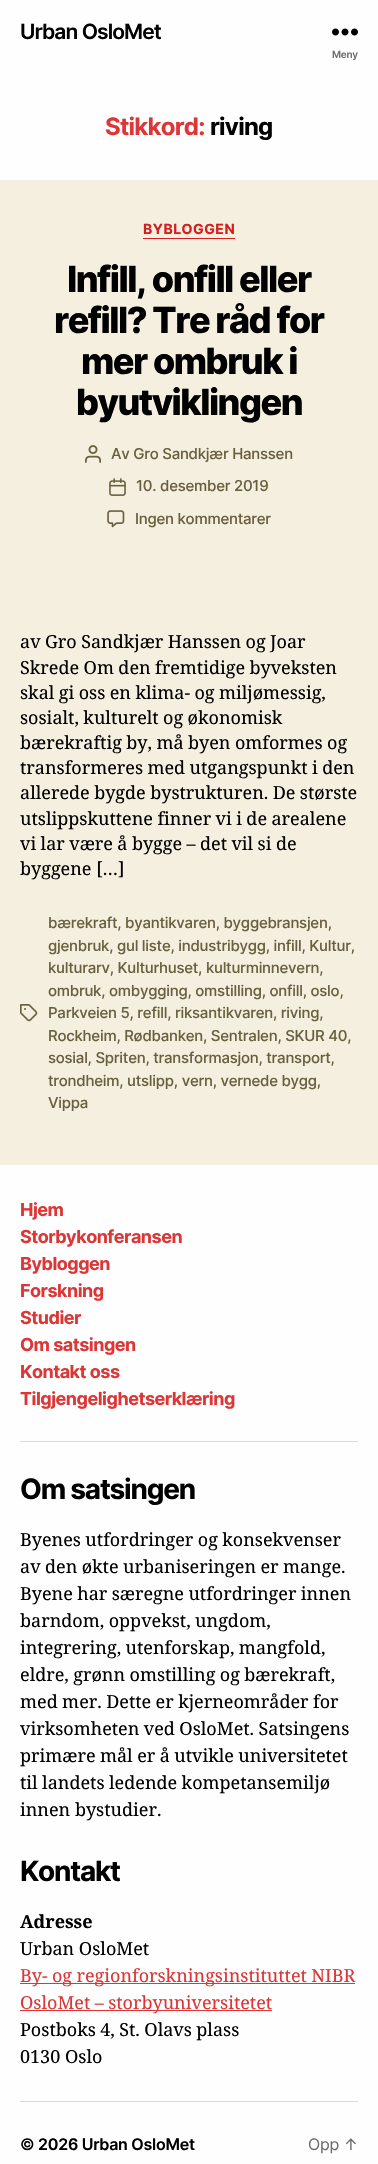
void draw(SkCanvas* canvas) {
  SkPaint paint;
  paint.setAntiAlias(true);
  auto face = [&](const char* family, int weight, float size, bool italic = false) {
    SkFontStyle style(weight, SkFontStyle::kNormal_Width,
      italic ? SkFontStyle::kItalic_Slant : SkFontStyle::kUpright_Slant);
    SkFont result(fontMgr->matchFamilyStyle(family, style), size);
    result.setSubpixel(true);
    return result;
  };
  auto writeSpaced = [&](const char* s, float x, float y, const SkFont& font, const SkPaint& ink, float letter, float word) {
    std::vector<SkGlyphID> glyphs(font.countText(s, strlen(s), SkTextEncoding::kUTF8));
    std::vector<float> xs(glyphs.size());
    font.textToGlyphs(s, strlen(s), SkTextEncoding::kUTF8, glyphs);
    font.getXPos(glyphs, xs, x);
    float extra = 0;
    for (size_t i = 0; i < glyphs.size(); i++) {
      xs[i] += extra;
      extra += letter + word * (glyphs[i] == font.unicharToGlyph(' '));
    }
    canvas->drawTextBlob(SkTextBlob::MakeFromPosHGlyphs(glyphs, xs, y, font), 0, 0, ink);
  };
  auto paste = [&](const char* path, float x, float y, float w, float h) {
    auto image = SkImages::DeferredFromEncodedData(SkData::MakeFromFileName(path));
    canvas->drawImageRect(image, SkRect::MakeXYWH(x, y, w, h), SkSamplingOptions());
  };
  canvas->clear(0xfff5efe0);
  paint.setColor(0xfffefefe);
  canvas->drawRect(SkRect::MakeXYWH(0, 0, 378, 180), paint);
  paste("img/1.png", 332, 28, 26, 8);
  paint.setColor(0xffd61e1e);
  canvas->drawRect(SkRect::MakeXYWH(143, 238, 92, 1), paint);
  paste("img/2.png", 85, 445, 16, 18);
  paste("img/3.png", 109, 478, 17, 18);
  paste("img/4.png", 107, 510, 18, 18);
  paste("img/5.png", 20, 1004, 18, 18);
  {
    const struct { float x, y, w, h; SkColor color; } items[] = {
      {0, 1165, 378, 999, 0xfffefefe},
      {20, 1441, 338, 1, 0xffdbdbdb},
      {20, 2101, 338, 1, 0xffdbdbdb},
      {20, 1983, 335, 1, 0xffdc3636},
      {20, 2010, 252, 1, 0xffdc3636},
    };
    for (auto [x, y, w, h, color] : items) {
      paint.setColor(color);
      canvas->drawRect(SkRect::MakeXYWH(x, y, w, h), paint);
    }
  }
  auto f0 = face("Inter", 600, 21);
  paint.setColor(0xff000000);
  writeSpaced("Urban OsloMet", 20, 39, f0, paint, -0.9f, 0);
  auto f1 = face("Inter", 600, 10);
  paint.setColor(0xff6d6d6d);
  writeSpaced("Meny", 332, 58, f1, paint, -0.25f, 0);
  auto f2 = face("Inter", 700, 24);
  paint.setColor(0xffdc3636);
  writeSpaced("Stikkord:", 105, 135, f2, paint, -0.75f, 0);
  paint.setColor(0xff000000);
  writeSpaced("riving", 210, 135, f2, paint, -0.75f, 0);
  auto f3 = face("Inter", 700, 14);
  paint.setColor(0xffd61e1e);
  writeSpaced("BYBLOGGEN", 143, 234, f3, paint, 0.5f, 0);
  auto f4 = face("Inter", 800, 36);
  paint.setColor(0xff000000);
  {
    const struct { const char* s; float x, y; } items[] = {
      {"Infill, onfill eller", 67, 292},
      {"refill? Tre råd for", 54, 333},
      {"mer ombruk i", 81, 374},
      {"byutviklingen", 76, 415},
    };
    for (auto [s, x, y] : items) {
      writeSpaced(s, x, y, f4, paint, -1.5f, 0);
    }
  }
  auto f5 = face("Inter", 500, 15);
  paint.setColor(0xff69603e);
  {
    const struct { const char* s; float x, y; } items[] = {
      {"Av Gro Sandkjær Hanssen", 111, 459},
      {"10. desember 2019", 136, 491},
      {"Ingen kommentarer", 135, 524},
    };
    for (auto [s, x, y] : items) {
      writeSpaced(s, x, y, f5, paint, -0.25f, 0);
    }
  }
  auto f6 = face("Noto Serif", 400, 18);
  paint.setColor(0xff000000);
  {
    const struct { const char* s; float x, y; } items[] = {
      {"av Gro Sandkjær Hanssen og Joar", 20, 648},
      {"Skrede Om den fremtidige byveksten", 20, 674},
      {"skal gi oss en klima- og miljømessig,", 20, 699},
      {"sosialt, kulturelt og økonomisk", 20, 724},
      {"bærekraftig by, må byen omformes og", 20, 749},
      {"transformeres med utgangspunkt i den", 20, 774},
      {"allerede bygde bystrukturen. De største", 20, 799},
      {"utslippskuttene finner vi i de arealene", 20, 825},
      {"vi lar være å bygge – det vil si de", 20, 850},
    };
    for (auto [s, x, y] : items) {
      writeSpaced(s, x, y, f6, paint, 0, -0.25f);
    }
  }
  canvas->drawString("byggene […]", 20, 875, f6, paint);
  paint.setColor(0xff69603e);
  {
    const struct { const char* s; float x, y; } items[] = {
      {"bærekraft, byantikvaren, byggebransjen,", 48, 928},
      {"gjenbruk, gul liste, industribygg, infill, Kultur,", 48, 951},
      {"kulturarv, Kulturhuset, kulturminnevern,", 48, 973},
      {"ombruk, ombygging, omstilling, onfill, oslo,", 48, 996},
      {"Parkveien 5, refill, riksantikvaren, riving,", 48, 1018},
      {"Rockheim, Rødbanken, Sentralen, SKUR 40,", 48, 1041},
      {"sosial, Spriten, transformasjon, transport,", 48, 1063},
      {"trondheim, utslipp, vern, vernede bygg,", 48, 1086},
      {"Vippa", 48, 1108},
    };
    for (auto [s, x, y] : items) {
      writeSpaced(s, x, y, f5, paint, -0.25f, 0);
    }
  }
  auto f7 = face("Inter", 700, 18);
  paint.setColor(0xffdc3636);
  {
    const struct { const char* s; float x, y; } items[] = {
      {"Hjem", 20, 1216},
      {"Storbykonferansen", 20, 1243},
      {"Bybloggen", 20, 1270},
      {"Forskning", 20, 1297},
      {"Studier", 20, 1324},
      {"Om satsingen", 20, 1351},
      {"Kontakt oss", 20, 1378},
      {"Tilgjengelighetserklæring", 20, 1405},
    };
    for (auto [s, x, y] : items) {
      writeSpaced(s, x, y, f7, paint, -0.5f, 0);
    }
  }
  auto f8 = face("Inter", 700, 28);
  paint.setColor(0xff000000);
  writeSpaced("Om satsingen", 20, 1499, f8, paint, -1.2f, 0);
  {
    const struct { const char* s; float x, y; } items[] = {
      {"Byenes utfordringer og konsekvenser", 20, 1546},
      {"av den økte urbaniseringen er mange.", 20, 1573},
      {"Byene har særegne utfordringer innen", 20, 1600},
      {"barndom, oppvekst, ungdom,", 20, 1627},
      {"integrering, utenforskap, mangfold,", 20, 1654},
      {"eldre, grønn omstilling og bærekraft,", 20, 1681},
      {"med mer. Dette er kjerneområder for", 20, 1708},
      {"virksomheten ved OsloMet. Satsingens", 20, 1735},
      {"primære mål er å utvikle universitetet", 20, 1762},
      {"til landets ledende kompetansemiljø", 20, 1789},
    };
    for (auto [s, x, y] : items) {
      writeSpaced(s, x, y, f6, paint, 0, -0.25f);
    }
  }
  canvas->drawString("innen bystudier.", 20, 1816, f6, paint);
  writeSpaced("Kontakt", 20, 1881, f8, paint, -1.2f, 0);
  auto f9 = face("Noto Serif", 700, 18);
  canvas->drawString("Adresse", 20, 1928, f9, paint);
  canvas->drawString("Urban OsloMet", 20, 1955, f6, paint);
  paint.setColor(0xffdc3636);
  writeSpaced("By- og regionforskningsinstituttet NIBR", 20, 1982, f6, paint, 0, -0.25f);
  writeSpaced("OsloMet – storbyuniversitetet", 20, 2009, f6, paint, 0, -0.25f);
  paint.setColor(0xff000000);
  writeSpaced("Postboks 4, St. Olavs plass", 20, 2036, f6, paint, 0, -0.25f);
  canvas->drawString("0130 Oslo", 20, 2063, f6, paint);
  auto f10 = face("Inter", 600, 16);
  writeSpaced("© 2026 Urban OsloMet", 20, 2150, f10, paint, -0.25f, 0);
  auto f11 = face("Inter", 400, 16);
  paint.setColor(0xff6d6d6d);
  writeSpaced("Opp ↑", 308, 2150, f11, paint, -0.25f, 0);
}
